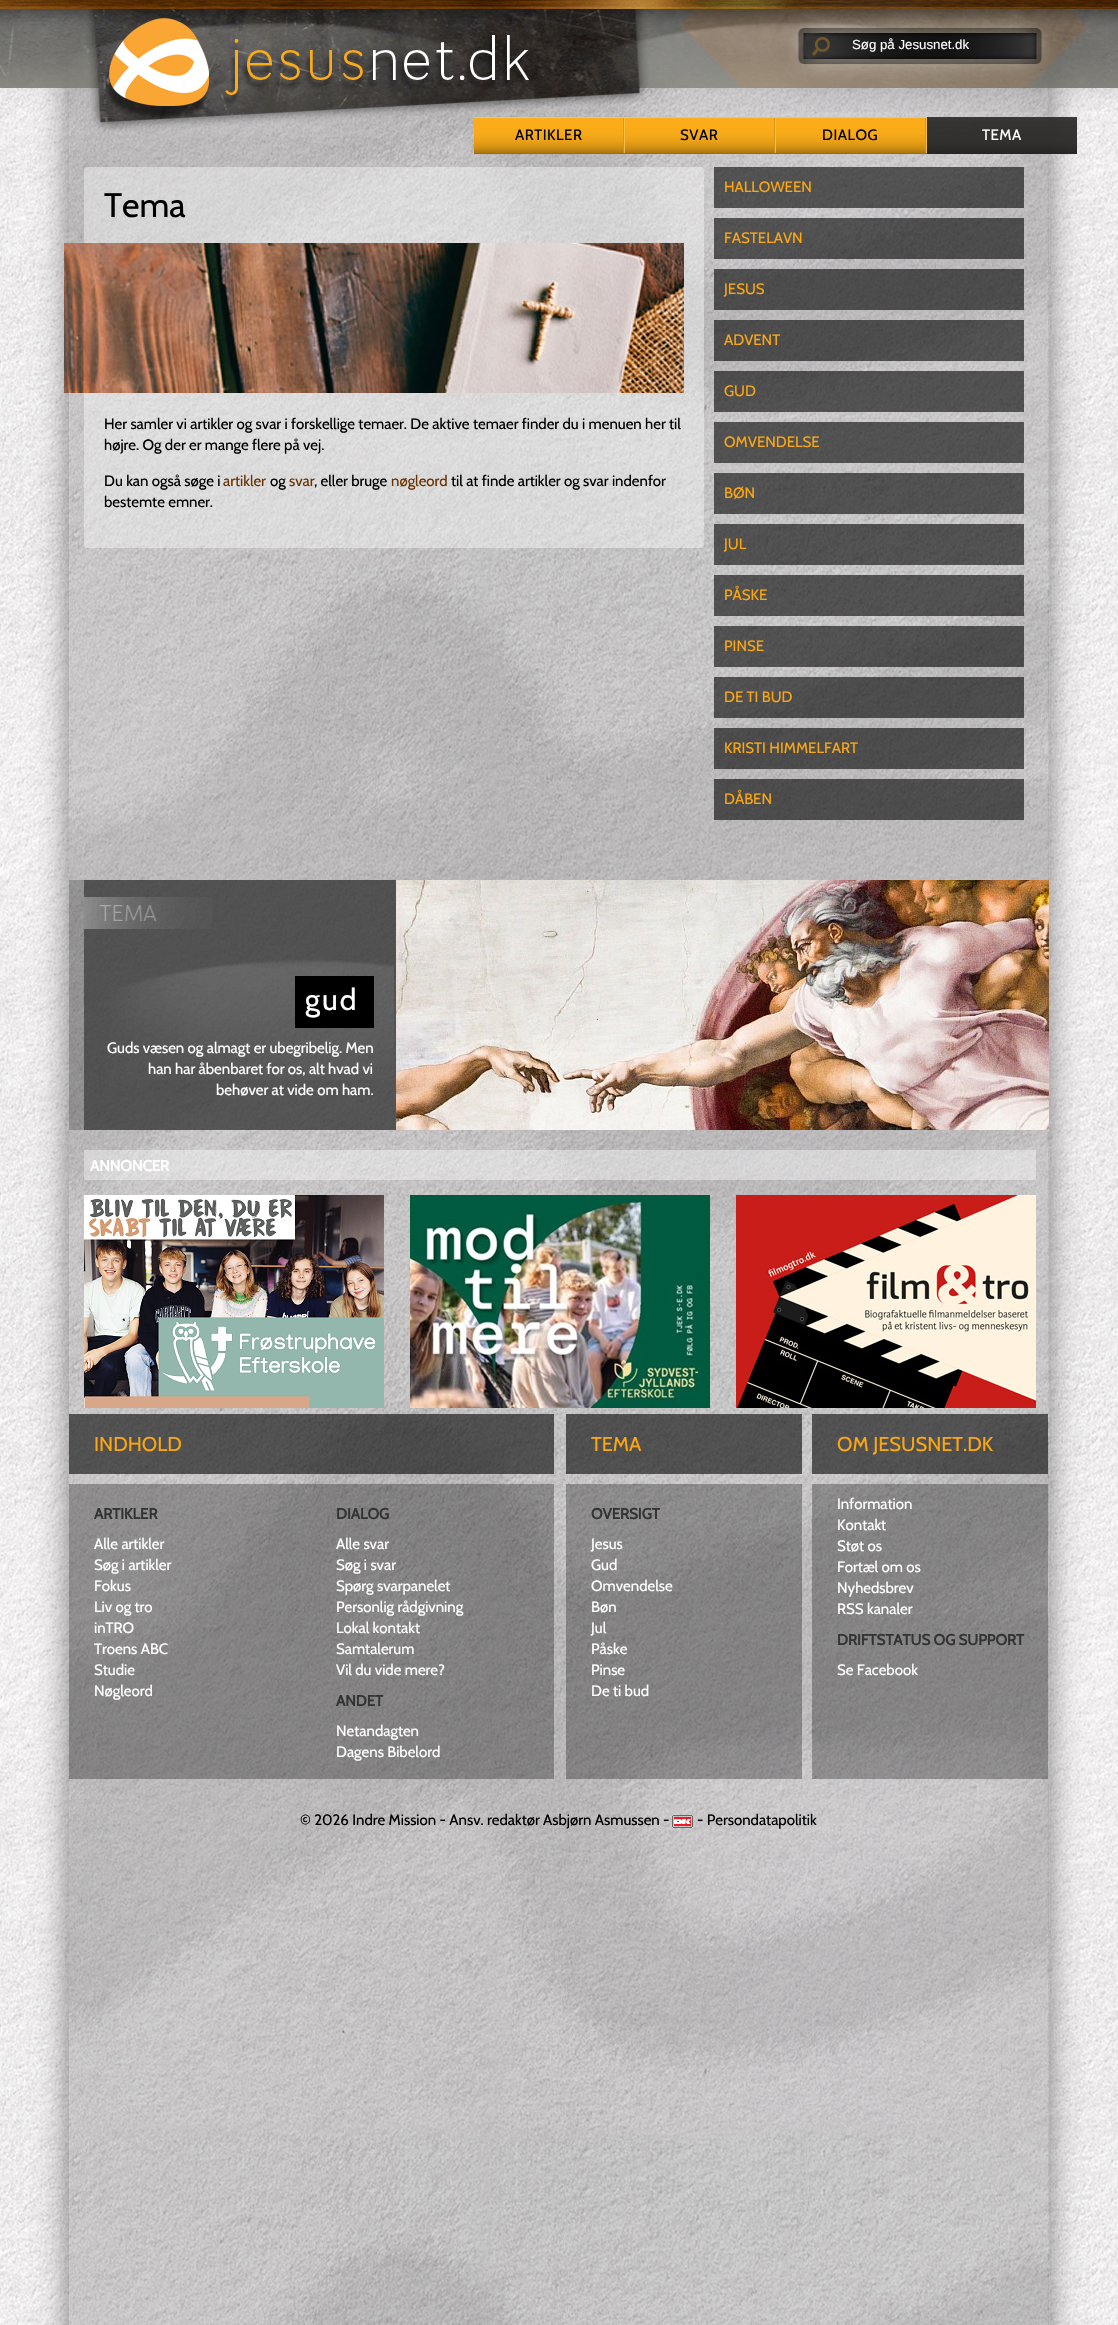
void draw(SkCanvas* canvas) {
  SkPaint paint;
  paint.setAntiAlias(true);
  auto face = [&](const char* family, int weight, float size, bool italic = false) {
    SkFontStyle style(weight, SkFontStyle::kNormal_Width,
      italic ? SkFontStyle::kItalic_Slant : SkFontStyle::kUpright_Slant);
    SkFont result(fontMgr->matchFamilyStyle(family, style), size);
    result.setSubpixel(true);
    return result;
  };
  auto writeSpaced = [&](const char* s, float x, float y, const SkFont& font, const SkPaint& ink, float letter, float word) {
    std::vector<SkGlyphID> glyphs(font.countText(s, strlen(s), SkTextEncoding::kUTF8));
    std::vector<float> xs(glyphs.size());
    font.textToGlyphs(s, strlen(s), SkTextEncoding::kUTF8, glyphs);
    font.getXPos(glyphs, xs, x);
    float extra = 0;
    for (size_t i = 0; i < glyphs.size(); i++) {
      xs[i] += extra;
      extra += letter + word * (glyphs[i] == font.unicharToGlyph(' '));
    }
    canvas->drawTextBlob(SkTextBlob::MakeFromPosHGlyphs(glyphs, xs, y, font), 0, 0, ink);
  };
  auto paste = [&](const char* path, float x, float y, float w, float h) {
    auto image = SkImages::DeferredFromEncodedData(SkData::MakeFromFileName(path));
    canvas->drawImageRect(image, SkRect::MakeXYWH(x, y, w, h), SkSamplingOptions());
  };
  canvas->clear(0xffffffff);
  paste("img/1.png", 0, 9, 1118, 2316);
  paste("img/2.png", 0, 0, 1118, 137);
  paste("img/3.png", 103, 18, 426, 101);
  paste("img/4.png", 812, 37, 18, 19);
  paste("img/5.png", 474, 117, 149, 37);
  paste("img/6.png", 623, 117, 2, 37);
  paste("img/5.png", 625, 117, 149, 37);
  paste("img/6.png", 774, 117, 2, 37);
  paste("img/5.png", 776, 117, 149, 37);
  paste("img/6.png", 925, 117, 2, 37);
  paste("img/7.png", 927, 117, 150, 37);
  paint.setColor(0x66ffffff);
  canvas->drawRoundRect(SkRect::MakeXYWH(84, 167, 620, 381), 3, 3, paint);
  paste("img/8.png", 64, 243, 620, 150);
  {
    const struct { float x, y, w, h; SkColor color; } items[] = {
      {714, 167, 310, 41, 0x99030303},
      {714, 218, 310, 41, 0x99030303},
      {714, 269, 310, 41, 0x99030303},
      {714, 320, 310, 41, 0x99030303},
      {714, 371, 310, 41, 0x99030303},
      {714, 422, 310, 41, 0x99030303},
      {714, 473, 310, 41, 0x99030303},
      {714, 524, 310, 41, 0x99030303},
      {714, 575, 310, 41, 0x99030303},
      {714, 626, 310, 41, 0x99030303},
      {714, 677, 310, 41, 0x99030303},
      {714, 728, 310, 41, 0x99030303},
      {714, 779, 310, 41, 0x99030303},
      {69, 880, 327, 250, 0x38000000},
      {84, 880, 312, 250, 0xad333333},
    };
    for (auto [x, y, w, h, color] : items) {
      paint.setColor(color);
      canvas->drawRect(SkRect::MakeXYWH(x, y, w, h), paint);
    }
  }
  paste("img/9.png", 84, 897, 310, 183);
  paint.setColor(0xff000000);
  canvas->drawRect(SkRect::MakeXYWH(295, 976, 79, 52), paint);
  paste("img/10.png", 396, 880, 653, 250);
  paint.setColor(0x66ffffff);
  canvas->drawRect(SkRect::MakeXYWH(84, 1150, 952, 30), paint);
  paste("img/11.png", 84, 1195, 300, 213);
  paste("img/12.png", 410, 1195, 300, 213);
  paste("img/13.png", 736, 1195, 300, 213);
  {
    const struct { float x, y, w, h; SkColor color; } items[] = {
      {69, 1414, 485, 60, 0x99030303},
      {69, 1484, 242, 295, 0x4d060606},
      {311, 1484, 243, 295, 0x4d060606},
      {566, 1414, 236, 60, 0x99030303},
      {566, 1484, 236, 295, 0x4d060606},
      {812, 1414, 236, 60, 0x99030303},
      {812, 1484, 236, 295, 0x4d060606},
    };
    for (auto [x, y, w, h, color] : items) {
      paint.setColor(color);
      canvas->drawRect(SkRect::MakeXYWH(x, y, w, h), paint);
    }
  }
  paste("img/14.png", 672, 1815, 21, 13);
  auto f0 = face("Liberation Sans", 400, 13.25f);
  paint.setColor(0xffffffff);
  canvas->drawString("Søg på Jesusnet.dk", 852, 49, f0, paint);
  auto f1 = face("Cabin", 400, 15);
  paint.setColor(0xff000000);
  {
    const struct { const char* s; float x, y; } items[] = {
      {"ARTIKLER", 515, 140},
      {"SVAR", 680, 140},
      {"DIALOG", 822, 140},
    };
    for (auto [s, x, y] : items) {
      writeSpaced(s, x, y, f1, paint, 0.5f, 0);
    }
  }
  paint.setColor(0xffffffff);
  writeSpaced("TEMA", 982, 140, f1, paint, 0.5f, 0);
  auto f2 = face("Cabin", 400, 34);
  paint.setColor(0xff000000);
  canvas->drawString("Tema", 104, 217, f2, paint);
  {
    const struct { const char* s; float x, y; } items[] = {
      {"Her samler vi artikler og svar i forskellige temaer. De aktive temaer finder du i menuen her til", 104, 429},
      {"højre. Og der er mange flere på vej.", 104, 450},
      {"Du kan også søge i", 104, 486},
    };
    for (auto [s, x, y] : items) {
      canvas->drawString(s, x, y, f1, paint);
    }
  }
  paint.setColor(0xff6a3303);
  canvas->drawString("artikler", 223, 486, f1, paint);
  paint.setColor(0xff000000);
  canvas->drawString("og", 270, 486, f1, paint);
  paint.setColor(0xff6a3303);
  canvas->drawString("svar", 289, 486, f1, paint);
  paint.setColor(0xff000000);
  canvas->drawString(", eller bruge", 314, 486, f1, paint);
  paint.setColor(0xff6a3303);
  canvas->drawString("nøgleord", 391, 486, f1, paint);
  paint.setColor(0xff000000);
  canvas->drawString("til at finde artikler og svar indenfor", 451, 486, f1, paint);
  canvas->drawString("bestemte emner.", 104, 507, f1, paint);
  paint.setColor(0xfffba712);
  {
    const struct { const char* s; float x, y; } items[] = {
      {"HALLOWEEN", 724, 192},
      {"FASTELAVN", 724, 243},
      {"JESUS", 724, 294},
      {"ADVENT", 724, 345},
      {"GUD", 724, 396},
      {"OMVENDELSE", 724, 447},
      {"BØN", 724, 498},
      {"JUL", 724, 549},
      {"PÅSKE", 724, 600},
      {"PINSE", 724, 651},
      {"DE TI BUD", 724, 702},
      {"KRISTI HIMMELFART", 724, 753},
      {"DÅBEN", 724, 804},
    };
    for (auto [s, x, y] : items) {
      canvas->drawString(s, x, y, f1, paint);
    }
  }
  auto f3 = face("Cabin", 400, 30);
  paint.setColor(0xffffffff);
  writeSpaced("gud", 305, 1010, f3, paint, 2, 0);
  {
    const struct { const char* s; float x, y; } items[] = {
      {"Guds væsen og almagt er ubegribelig. Men", 107, 1053},
      {"han har åbenbaret for os, alt hvad vi", 148, 1074},
      {"behøver at vide om ham.", 216, 1095},
    };
    for (auto [s, x, y] : items) {
      canvas->drawString(s, x, y, f1, paint);
    }
  }
  auto f4 = face("Cabin", 700, 15);
  canvas->drawString("ANNONCER", 90, 1171, f4, paint);
  auto f5 = face("Cabin", 400, 20);
  paint.setColor(0xfffba712);
  canvas->drawString("INDHOLD", 94, 1451, f5, paint);
  paint.setColor(0xff333333);
  canvas->drawString("ARTIKLER", 94, 1519, f4, paint);
  paint.setColor(0xffffffff);
  {
    const struct { const char* s; float x, y; } items[] = {
      {"Alle artikler", 94, 1549},
      {"Søg i artikler", 94, 1570},
      {"Fokus", 94, 1591},
      {"Liv og tro", 94, 1612},
      {"inTRO", 94, 1633},
      {"Troens ABC", 94, 1654},
      {"Studie", 94, 1675},
      {"Nøgleord", 94, 1696},
    };
    for (auto [s, x, y] : items) {
      canvas->drawString(s, x, y, f1, paint);
    }
  }
  paint.setColor(0xff333333);
  canvas->drawString("DIALOG", 336, 1519, f4, paint);
  paint.setColor(0xffffffff);
  {
    const struct { const char* s; float x, y; } items[] = {
      {"Alle svar", 336, 1549},
      {"Søg i svar", 336, 1570},
      {"Spørg svarpanelet", 336, 1591},
      {"Personlig rådgivning", 336, 1612},
      {"Lokal kontakt", 336, 1633},
      {"Samtalerum", 336, 1654},
      {"Vil du vide mere?", 336, 1675},
    };
    for (auto [s, x, y] : items) {
      canvas->drawString(s, x, y, f1, paint);
    }
  }
  paint.setColor(0xff333333);
  canvas->drawString("ANDET", 336, 1706, f4, paint);
  paint.setColor(0xffffffff);
  canvas->drawString("Netandagten", 336, 1736, f1, paint);
  canvas->drawString("Dagens Bibelord", 336, 1757, f1, paint);
  paint.setColor(0xfffba712);
  canvas->drawString("TEMA", 591, 1451, f5, paint);
  paint.setColor(0xff333333);
  canvas->drawString("OVERSIGT", 591, 1519, f4, paint);
  paint.setColor(0xffffffff);
  {
    const struct { const char* s; float x, y; } items[] = {
      {"Jesus", 591, 1549},
      {"Gud", 591, 1570},
      {"Omvendelse", 591, 1591},
      {"Bøn", 591, 1612},
      {"Jul", 591, 1633},
      {"Påske", 591, 1654},
      {"Pinse", 591, 1675},
      {"De ti bud", 591, 1696},
    };
    for (auto [s, x, y] : items) {
      canvas->drawString(s, x, y, f1, paint);
    }
  }
  paint.setColor(0xfffba712);
  canvas->drawString("OM JESUSNET.DK", 837, 1451, f5, paint);
  paint.setColor(0xffffffff);
  {
    const struct { const char* s; float x, y; } items[] = {
      {"Information", 837, 1509},
      {"Kontakt", 837, 1530},
      {"Støt os", 837, 1551},
      {"Fortæl om os", 837, 1572},
      {"Nyhedsbrev", 837, 1593},
      {"RSS kanaler", 837, 1614},
    };
    for (auto [s, x, y] : items) {
      canvas->drawString(s, x, y, f1, paint);
    }
  }
  paint.setColor(0xff333333);
  canvas->drawString("DRIFTSTATUS OG SUPPORT", 837, 1645, f4, paint);
  paint.setColor(0xffffffff);
  canvas->drawString("Se Facebook", 837, 1675, f1, paint);
  paint.setColor(0xff000000);
  canvas->drawString("© 2026 Indre Mission - Ansv. redaktør Asbjørn Asmussen -", 300, 1825, f1, paint);
  canvas->drawString("- Persondatapolitik", 697, 1825, f1, paint);
}
